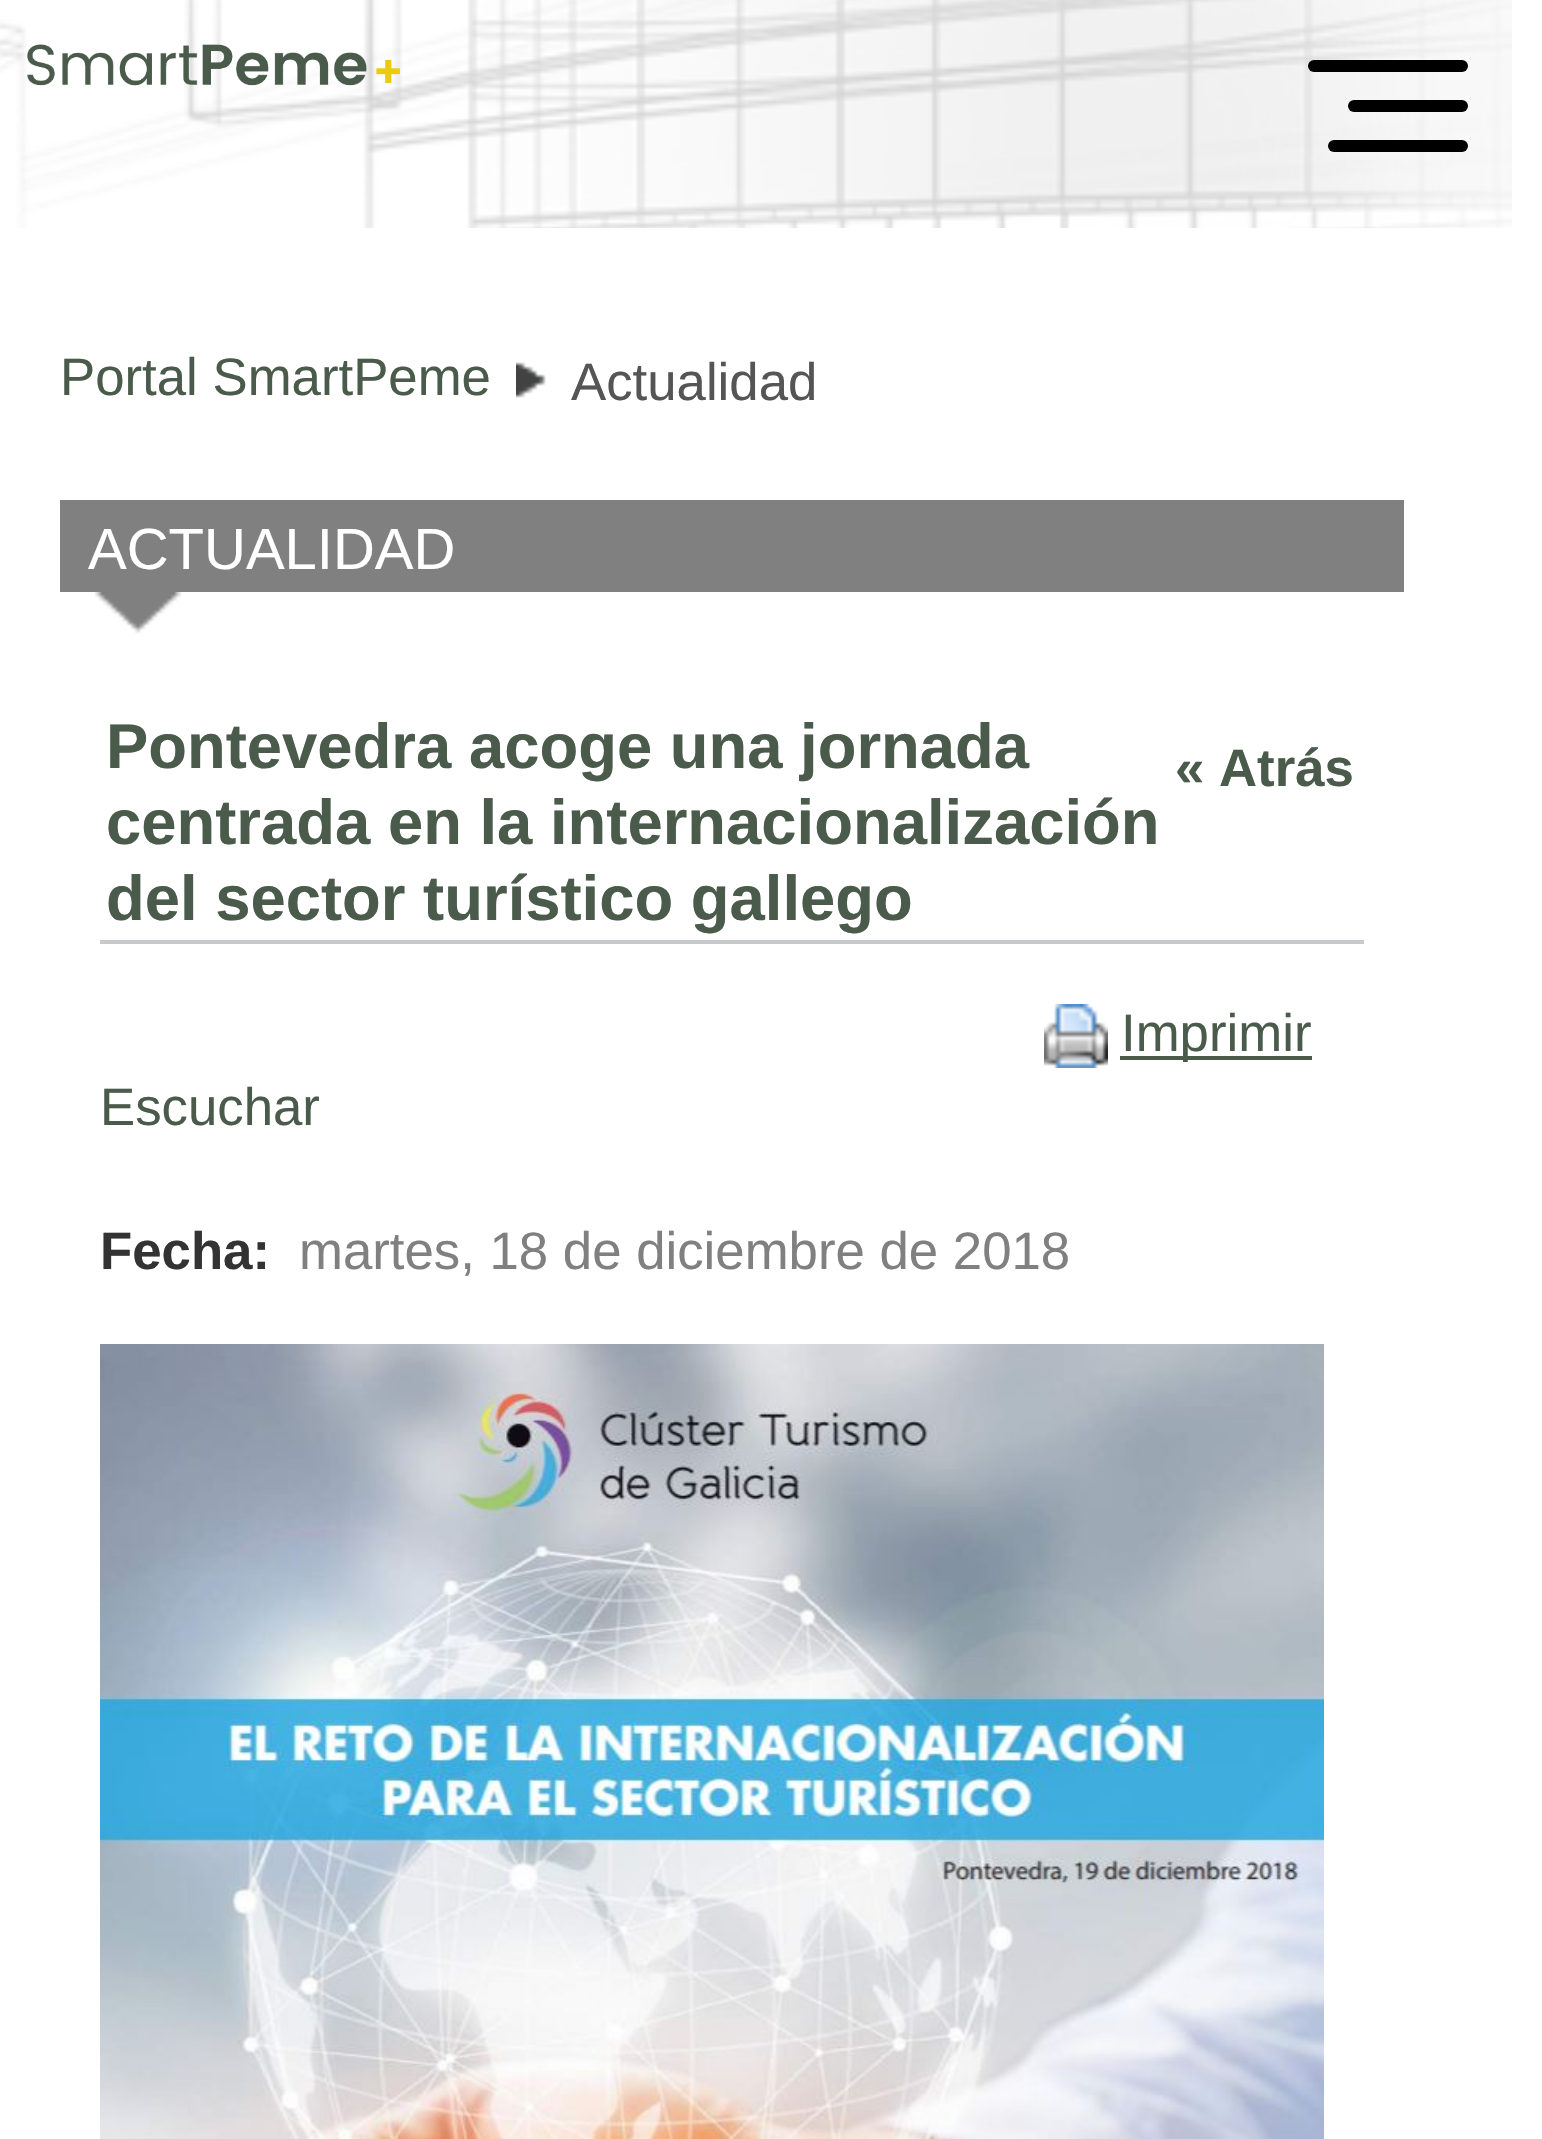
void draw(SkCanvas* canvas) {
  SkPaint paint;
  paint.setAntiAlias(true);
  auto face = [&](const char* family, int weight, float size, bool italic = false) {
    SkFontStyle style(weight, SkFontStyle::kNormal_Width,
      italic ? SkFontStyle::kItalic_Slant : SkFontStyle::kUpright_Slant);
    SkFont result(fontMgr->matchFamilyStyle(family, style), size);
    result.setSubpixel(true);
    return result;
  };
  auto paste = [&](const char* path, float x, float y, float w, float h) {
    auto image = SkImages::DeferredFromEncodedData(SkData::MakeFromFileName(path));
    canvas->drawImageRect(image, SkRect::MakeXYWH(x, y, w, h), SkSamplingOptions());
  };
  canvas->clear(0xffffffff);
  paste("img/1.png", 0, 0, 1512, 228);
  paste("img/2.png", 27, 44, 373, 42);
  paint.setColor(0xff000000);
  canvas->drawRoundRect(SkRect::MakeXYWH(1348, 100, 120, 12), 6, 6, paint);
  canvas->drawRoundRect(SkRect::MakeXYWH(1308, 60, 160, 12), 6, 6, paint);
  canvas->drawRoundRect(SkRect::MakeXYWH(1328, 140, 140, 12), 6, 6, paint);
  paste("img/3.png", 516, 362, 30, 36);
  paint.setColor(0xff808080);
  canvas->drawRect(SkRect::MakeXYWH(60, 500, 1344, 92), paint);
  paste("img/4.png", 60, 592, 1344, 60);
  paint.setColor(0xffc8c9ca);
  canvas->drawRect(SkRect::MakeXYWH(100, 940, 1264, 4), paint);
  paste("img/5.png", 1044, 1004, 64, 64);
  paint.setColor(0xff4a5a4b);
  canvas->drawRect(SkRect::MakeXYWH(1120, 1056, 192, 4), paint);
  paste("img/6.png", 100, 1344, 1224, 795);
  auto f0 = face("Liberation Sans", 400, 52.75f);
  canvas->drawString("Portal SmartPeme", 60, 395, f0, paint);
  paint.setColor(0xff555555);
  canvas->drawString("Actualidad", 571, 400, f0, paint);
  auto f1 = face("Liberation Sans", 400, 58);
  paint.setColor(0xffffffff);
  canvas->drawString("ACTUALIDAD", 88, 569, f1, paint);
  auto f2 = face("Liberation Sans", 700, 63.4f);
  paint.setColor(0xff4a5a4b);
  {
    const struct { const char* s; float x, y; } items[] = {
      {"Pontevedra acoge una jornada", 106, 768},
      {"centrada en la internacionalización", 106, 844},
      {"del sector turístico gallego", 106, 920},
    };
    for (auto [s, x, y] : items) {
      canvas->drawString(s, x, y, f2, paint);
    }
  }
  auto f3 = face("Liberation Sans", 700, 52.75f);
  canvas->drawString("« Atrás", 1175, 786, f3, paint);
  canvas->drawString("Imprimir", 1121, 1051, f0, paint);
  canvas->drawString("Escuchar", 100, 1125, f0, paint);
  paint.setColor(0xff333333);
  canvas->drawString("Fecha:", 100, 1269, f3, paint);
  paint.setColor(0xff808080);
  canvas->drawString("martes, 18 de diciembre de 2018", 299, 1269, f0, paint);
}
